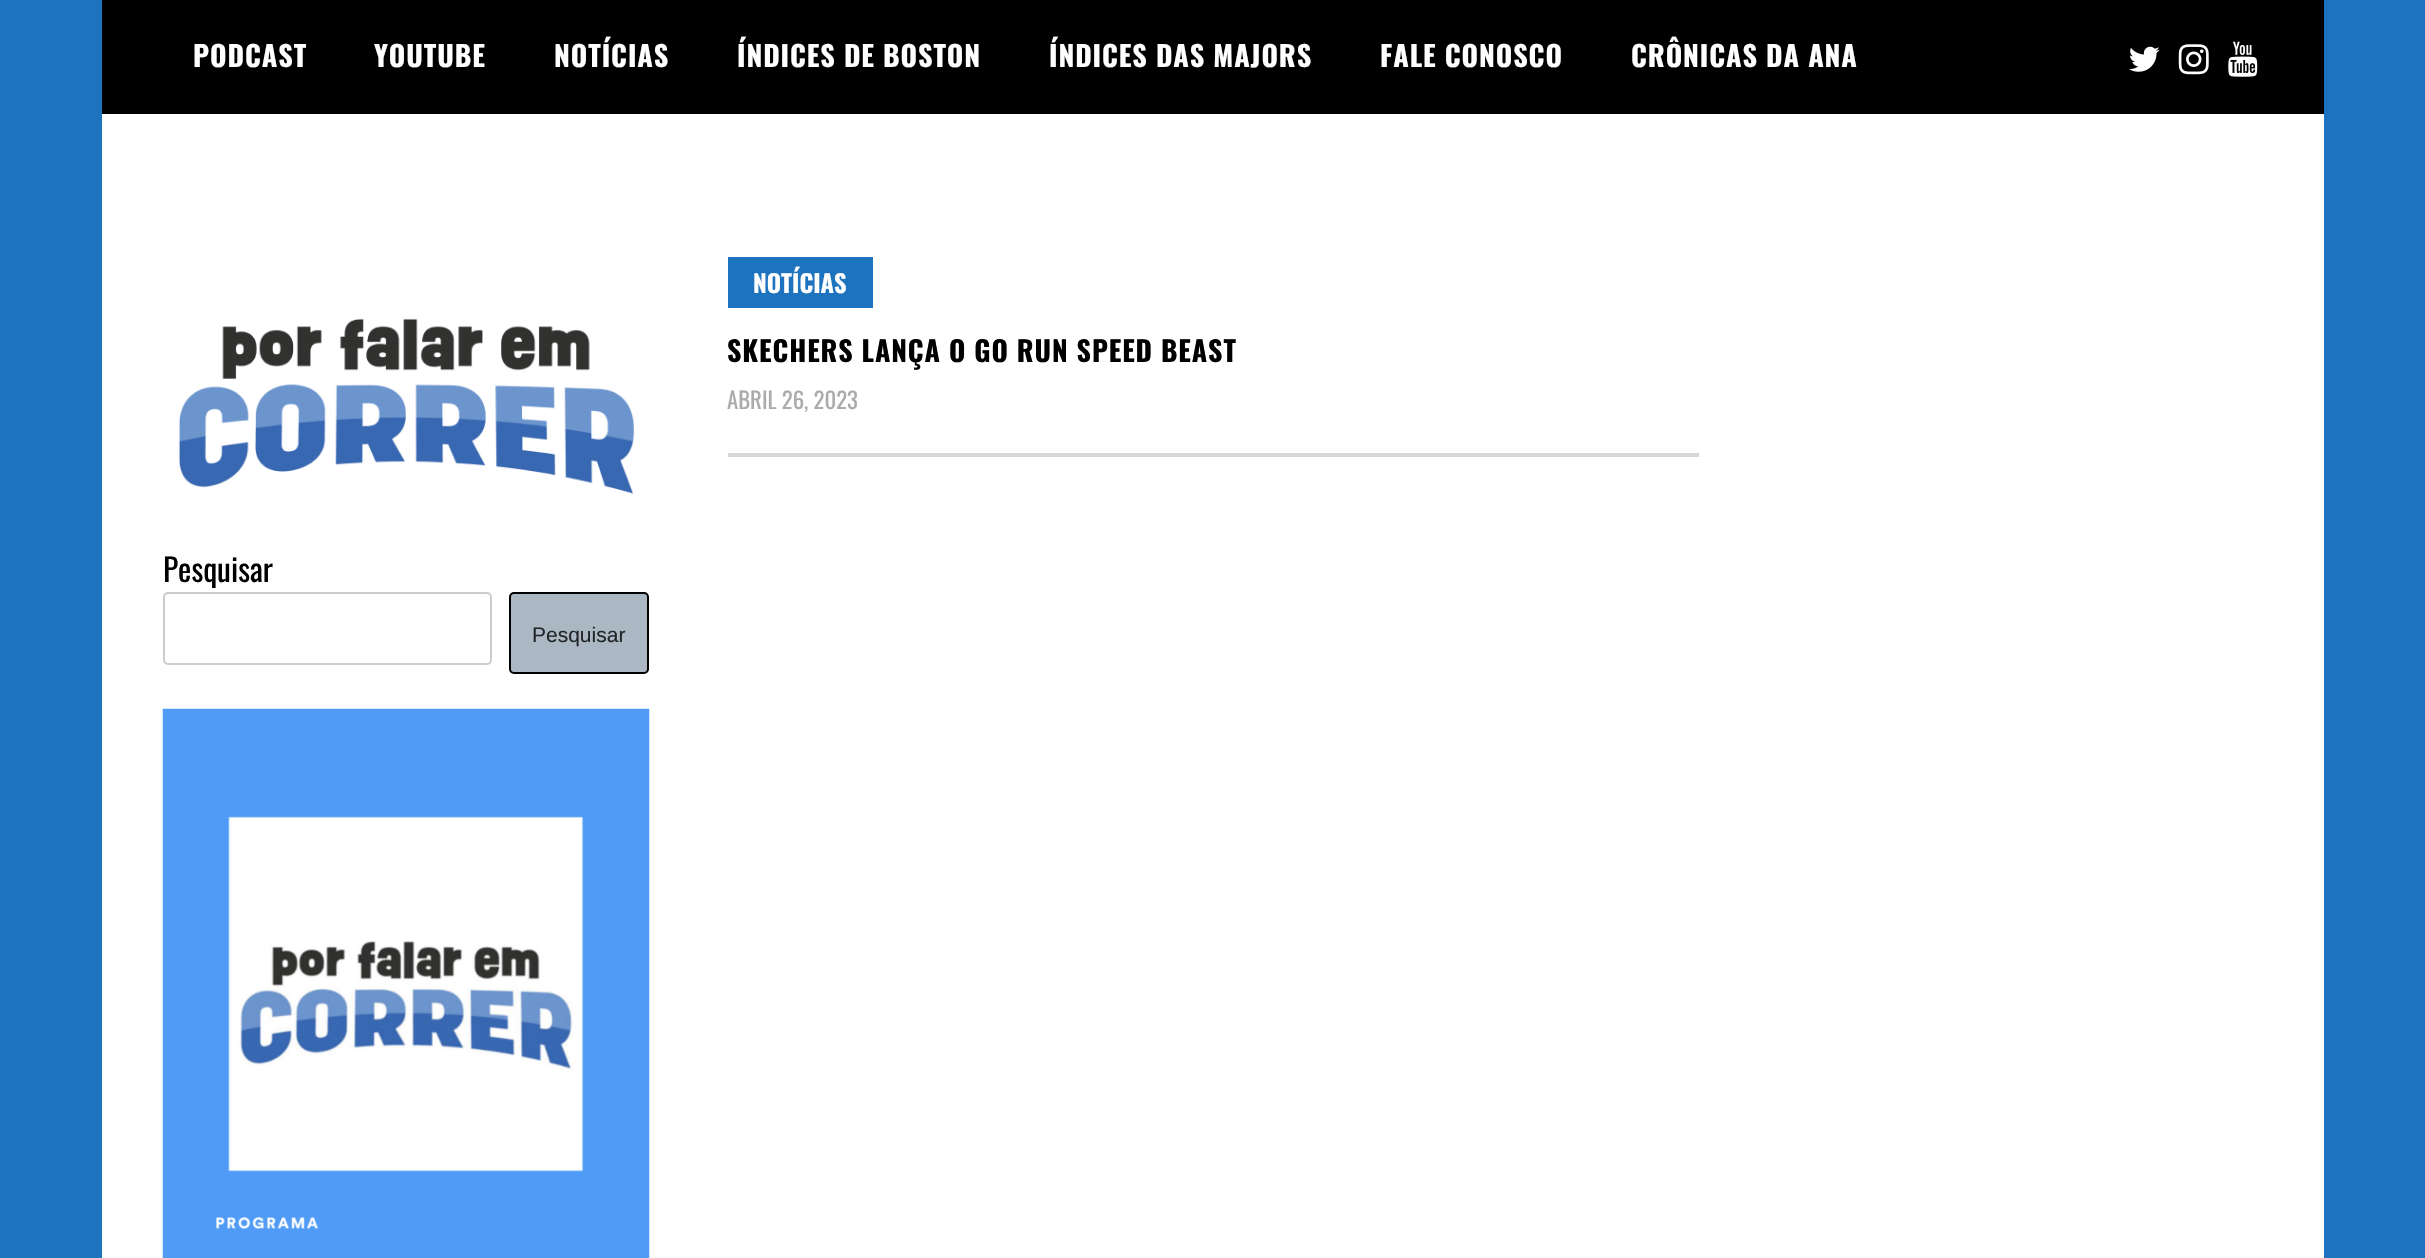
void draw(SkCanvas* canvas) {
  SkPaint paint;
  paint.setAntiAlias(true);
  auto face = [&](const char* family, int weight, float size, bool italic = false) {
    SkFontStyle style(weight, SkFontStyle::kNormal_Width,
      italic ? SkFontStyle::kItalic_Slant : SkFontStyle::kUpright_Slant);
    SkFont result(fontMgr->matchFamilyStyle(family, style), size);
    result.setSubpixel(true);
    return result;
  };
  auto writeSpaced = [&](const char* s, float x, float y, const SkFont& font, const SkPaint& ink, float letter, float word) {
    std::vector<SkGlyphID> glyphs(font.countText(s, strlen(s), SkTextEncoding::kUTF8));
    std::vector<float> xs(glyphs.size());
    font.textToGlyphs(s, strlen(s), SkTextEncoding::kUTF8, glyphs);
    font.getXPos(glyphs, xs, x);
    float extra = 0;
    for (size_t i = 0; i < glyphs.size(); i++) {
      xs[i] += extra;
      extra += letter + word * (glyphs[i] == font.unicharToGlyph(' '));
    }
    canvas->drawTextBlob(SkTextBlob::MakeFromPosHGlyphs(glyphs, xs, y, font), 0, 0, ink);
  };
  auto paste = [&](const char* path, float x, float y, float w, float h) {
    auto image = SkImages::DeferredFromEncodedData(SkData::MakeFromFileName(path));
    canvas->drawImageRect(image, SkRect::MakeXYWH(x, y, w, h), SkSamplingOptions());
  };
  canvas->clear(0xff1e73be);
  paint.setColor(0xffffffff);
  canvas->drawRect(SkRect::MakeXYWH(102, 114, 2222, 1144), paint);
  paint.setColor(0xff000000);
  canvas->drawRect(SkRect::MakeXYWH(102, 0, 2222, 114), paint);
  paste("img/1.png", 2129, 46, 31, 26);
  paste("img/2.png", 2178, 44, 31, 31);
  paste("img/3.png", 2228, 41, 30, 36);
  paint.setColor(0xffd7d7d7);
  canvas->drawRect(SkRect::MakeXYWH(728, 453, 971, 4), paint);
  paint.setColor(0xff1e73be);
  canvas->drawRect(SkRect::MakeXYWH(728, 257, 145, 51), paint);
  paste("img/4.png", 178, 318, 457, 176);
  paint.setStroke(true);
  paint.setStrokeWidth(2);
  paint.setColor(0xffcccccc);
  canvas->drawRoundRect(SkRect::MakeXYWH(164, 593, 327, 71), 4, 4, paint);
  paint.setStroke(false);
  paint.setColor(0xffabb8c3);
  canvas->drawRoundRect(SkRect::MakeXYWH(510, 593, 138, 80), 4, 4, paint);
  paint.setStroke(true);
  paint.setColor(0xff000000);
  canvas->drawRoundRect(SkRect::MakeXYWH(510, 593, 138, 80), 4, 4, paint);
  paste("img/5.png", 162, 708, 488, 550);
  auto f0 = face("Oswald", 700, 28.25f);
  paint.setStroke(false);
  paint.setColor(0xffffffff);
  {
    const struct { const char* s; float x, y; } items[] = {
      {"PODCAST", 193, 67},
      {"YOUTUBE", 374, 67},
      {"NOTÍCIAS", 554, 67},
      {"ÍNDICES DE BOSTON", 737, 67},
      {"ÍNDICES DAS MAJORS", 1049, 67},
      {"FALE CONOSCO", 1380, 67},
      {"CRÔNICAS DA ANA", 1631, 67},
    };
    for (auto [s, x, y] : items) {
      writeSpaced(s, x, y, f0, paint, 0.9f, 0);
    }
  }
  auto f1 = face("Oswald", 700, 24.5f);
  canvas->drawString("NOTÍCIAS", 753, 293, f1, paint);
  auto f2 = face("Oswald", 700, 28);
  paint.setColor(0xff000000);
  writeSpaced("SKECHERS LANÇA O GO RUN SPEED BEAST", 727, 362, f2, paint, 0.9f, 0);
  auto f3 = face("Oswald", 400, 22.75f);
  paint.setColor(0xffababab);
  canvas->drawString("ABRIL 26, 2023", 727, 409, f3, paint);
  auto f4 = face("Oswald", 400, 31.5f);
  paint.setColor(0xff000000);
  canvas->drawString("Pesquisar", 163, 582, f4, paint);
  auto f5 = face("Liberation Sans", 400, 21);
  paint.setColor(0xff222527);
  canvas->drawString("Pesquisar", 532, 642, f5, paint);
}
